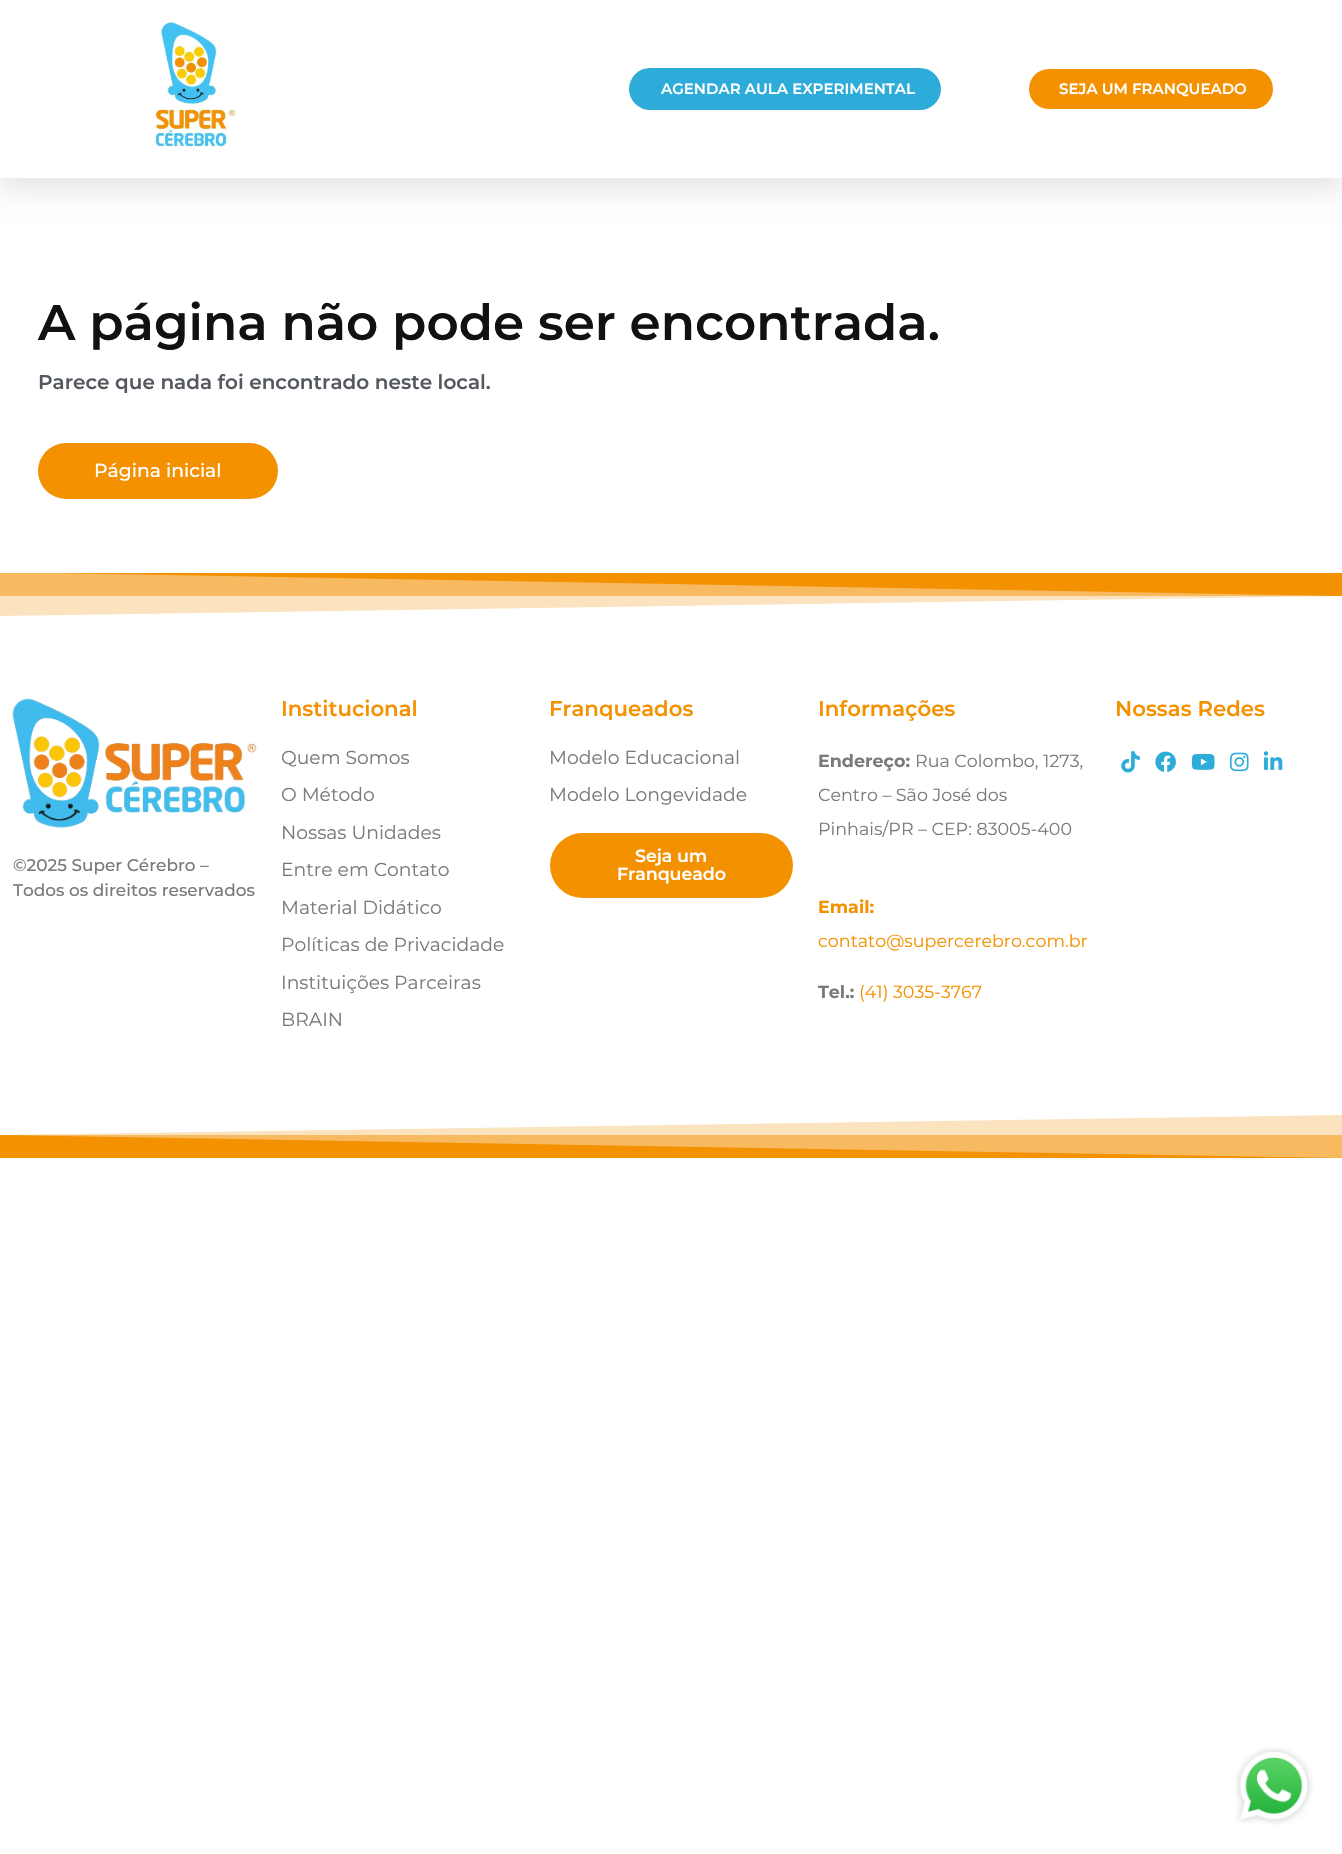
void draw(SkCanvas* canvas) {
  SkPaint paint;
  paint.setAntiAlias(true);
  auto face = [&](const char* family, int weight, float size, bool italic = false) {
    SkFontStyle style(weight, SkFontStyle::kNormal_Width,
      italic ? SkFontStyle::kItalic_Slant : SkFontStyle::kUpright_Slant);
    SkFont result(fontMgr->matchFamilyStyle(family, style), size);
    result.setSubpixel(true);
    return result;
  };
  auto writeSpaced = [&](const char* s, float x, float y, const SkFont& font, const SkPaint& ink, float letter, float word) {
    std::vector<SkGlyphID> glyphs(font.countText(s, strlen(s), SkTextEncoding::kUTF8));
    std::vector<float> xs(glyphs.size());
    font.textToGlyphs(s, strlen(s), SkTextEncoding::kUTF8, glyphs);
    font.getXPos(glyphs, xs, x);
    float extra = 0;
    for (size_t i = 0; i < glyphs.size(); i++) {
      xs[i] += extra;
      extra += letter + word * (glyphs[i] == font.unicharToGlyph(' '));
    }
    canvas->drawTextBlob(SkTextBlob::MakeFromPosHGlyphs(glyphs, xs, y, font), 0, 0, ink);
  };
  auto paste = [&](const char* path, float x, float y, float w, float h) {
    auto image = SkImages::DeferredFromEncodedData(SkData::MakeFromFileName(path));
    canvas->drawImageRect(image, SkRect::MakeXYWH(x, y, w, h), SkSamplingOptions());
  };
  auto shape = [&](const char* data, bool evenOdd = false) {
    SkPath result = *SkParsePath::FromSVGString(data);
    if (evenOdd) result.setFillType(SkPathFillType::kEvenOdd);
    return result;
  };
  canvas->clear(0xffffffff);
  paint.setColor(0xfffac880);
  canvas->drawRect(SkRect::MakeXYWH(2, 1135, 1340, 23), paint);
  canvas->drawRect(SkRect::MakeXYWH(0, 573, 1342, 23), paint);
  paint.setColor(0x1a000000);
  paint.setMaskFilter(SkMaskFilter::MakeBlur(kNormal_SkBlurStyle, 12.5f));
  canvas->drawRect(SkRect::MakeXYWH(0, 13, 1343, 177), paint);
  paint.setMaskFilter(nullptr);
  paint.setColor(0xffffffff);
  canvas->drawRect(SkRect::MakeXYWH(0, 0, 1342, 178), paint);
  paste("img/1.png", 155, 21, 82, 129);
  paint.setColor(0xff2dabd9);
  canvas->drawRoundRect(SkRect::MakeXYWH(629, 68, 312, 42), 21, 21, paint);
  paint.setColor(0xfff49100);
  canvas->drawRoundRect(SkRect::MakeXYWH(1029, 69, 244, 40), 20, 20, paint);
  canvas->drawRoundRect(SkRect::MakeXYWH(38, 443, 240, 56), 28, 28, paint);
  canvas->save();
  canvas->clipRect(SkRect::MakeXYWH(0, 573, 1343, 43));
  canvas->drawPath(shape("M-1 572H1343V596Z"), paint);
  paint.setColor(0x40f49100);
  canvas->drawPath(shape("M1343 572H-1V616L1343 596Z"), paint);
  canvas->restore();
  paint.setColor(0xfff49100);
  canvas->drawRoundRect(SkRect::MakeXYWH(550, 833, 243, 65), 32.5f, 32.5f, paint);
  paste("img/2.png", 1121, 751, 19, 22);
  paste("img/3.png", 1155, 751, 21, 21);
  paste("img/4.png", 1191, 753, 24, 17);
  paste("img/5.png", 1230, 752, 19, 20);
  paste("img/6.png", 1264, 751, 19, 19);
  paste("img/7.png", 12, 698, 245, 130);
  canvas->drawPath(shape("M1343 1158H-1V1135Z"), paint);
  paint.setColor(0x40f49100);
  canvas->drawPath(shape("M-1 1158H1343V1115L-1 1135Z"), paint);
  paste("img/8.png", 1235, 1747, 78, 78);
  auto f0 = face("Montserrat", 600, 15);
  paint.setColor(0xffffffff);
  canvas->drawString("AGENDAR AULA EXPERIMENTAL", 661, 94, f0, paint);
  canvas->drawString("SEJA UM FRANQUEADO", 1059, 94, f0, paint);
  auto f1 = face("Montserrat", 600, 50);
  paint.setColor(0xff111111);
  canvas->drawString("A página não pode ser encontrada.", 38, 340, f1, paint);
  auto f2 = face("Montserrat", 600, 20);
  paint.setColor(0xff54595f);
  canvas->drawString("Parece que nada foi encontrado neste local.", 38, 389, f2, paint);
  auto f3 = face("Montserrat", 500, 18.75f);
  paint.setColor(0xffffffff);
  canvas->drawString("Página inicial", 94, 477, f3, paint);
  auto f4 = face("Montserrat", 600, 21.25f);
  paint.setColor(0xfff49100);
  canvas->drawString("Institucional", 281, 716, f4, paint);
  auto f5 = face("Montserrat", 400, 18.75f);
  paint.setColor(0xff7a7a7a);
  {
    const struct { const char* s; float x, y; } items[] = {
      {"Quem Somos", 281, 764},
      {"O Método", 281, 801},
      {"Nossas Unidades", 281, 839},
      {"Entre em Contato", 281, 876},
      {"Material Didático", 281, 914},
      {"Políticas de Privacidade", 281, 951},
      {"Instituições Parceiras", 281, 989},
      {"BRAIN", 281, 1026},
    };
    for (auto [s, x, y] : items) {
      canvas->drawString(s, x, y, f5, paint);
    }
  }
  paint.setColor(0xfff49100);
  canvas->drawString("Franqueados", 549, 716, f4, paint);
  paint.setColor(0xff7a7a7a);
  canvas->drawString("Modelo Educacional", 549, 764, f5, paint);
  canvas->drawString("Modelo Longevidade", 549, 801, f5, paint);
  auto f6 = face("Montserrat", 600, 17.5f);
  paint.setColor(0xffffffff);
  writeSpaced("Seja um", 635, 862, f6, paint, -0.1f, 0);
  writeSpaced("Franqueado", 617, 880, f6, paint, -0.1f, 0);
  paint.setColor(0xfff49100);
  canvas->drawString("Informações", 818, 716, f4, paint);
  auto f7 = face("Montserrat", 700, 17.5f);
  paint.setColor(0xff7a7a7a);
  canvas->drawString("Endereço:", 818, 767, f7, paint);
  auto f8 = face("Montserrat", 400, 17.5f);
  {
    const struct { const char* s; float x, y; } items[] = {
      {"Rua Colombo, 1273,", 915, 767},
      {"Centro – São José dos", 818, 801},
      {"Pinhais/PR – CEP: 83005-400", 818, 835},
    };
    for (auto [s, x, y] : items) {
      canvas->drawString(s, x, y, f8, paint);
    }
  }
  paint.setColor(0xfff49100);
  canvas->drawString("Email:", 818, 913, f7, paint);
  canvas->drawString("contato@supercerebro.com.br", 818, 947, f8, paint);
  paint.setColor(0xff7a7a7a);
  canvas->drawString("Tel.:", 818, 998, f7, paint);
  paint.setColor(0xfff49100);
  canvas->drawString("(41) 3035-3767", 859, 998, f8, paint);
  canvas->drawString("Nossas Redes", 1115, 716, f4, paint);
  auto f9 = face("Montserrat", 500, 16.9f);
  paint.setColor(0xff7a7a7a);
  canvas->drawString("©2025 Super Cérebro –", 13, 871, f9, paint);
  canvas->drawString("Todos os direitos reservados", 13, 896, f9, paint);
}
